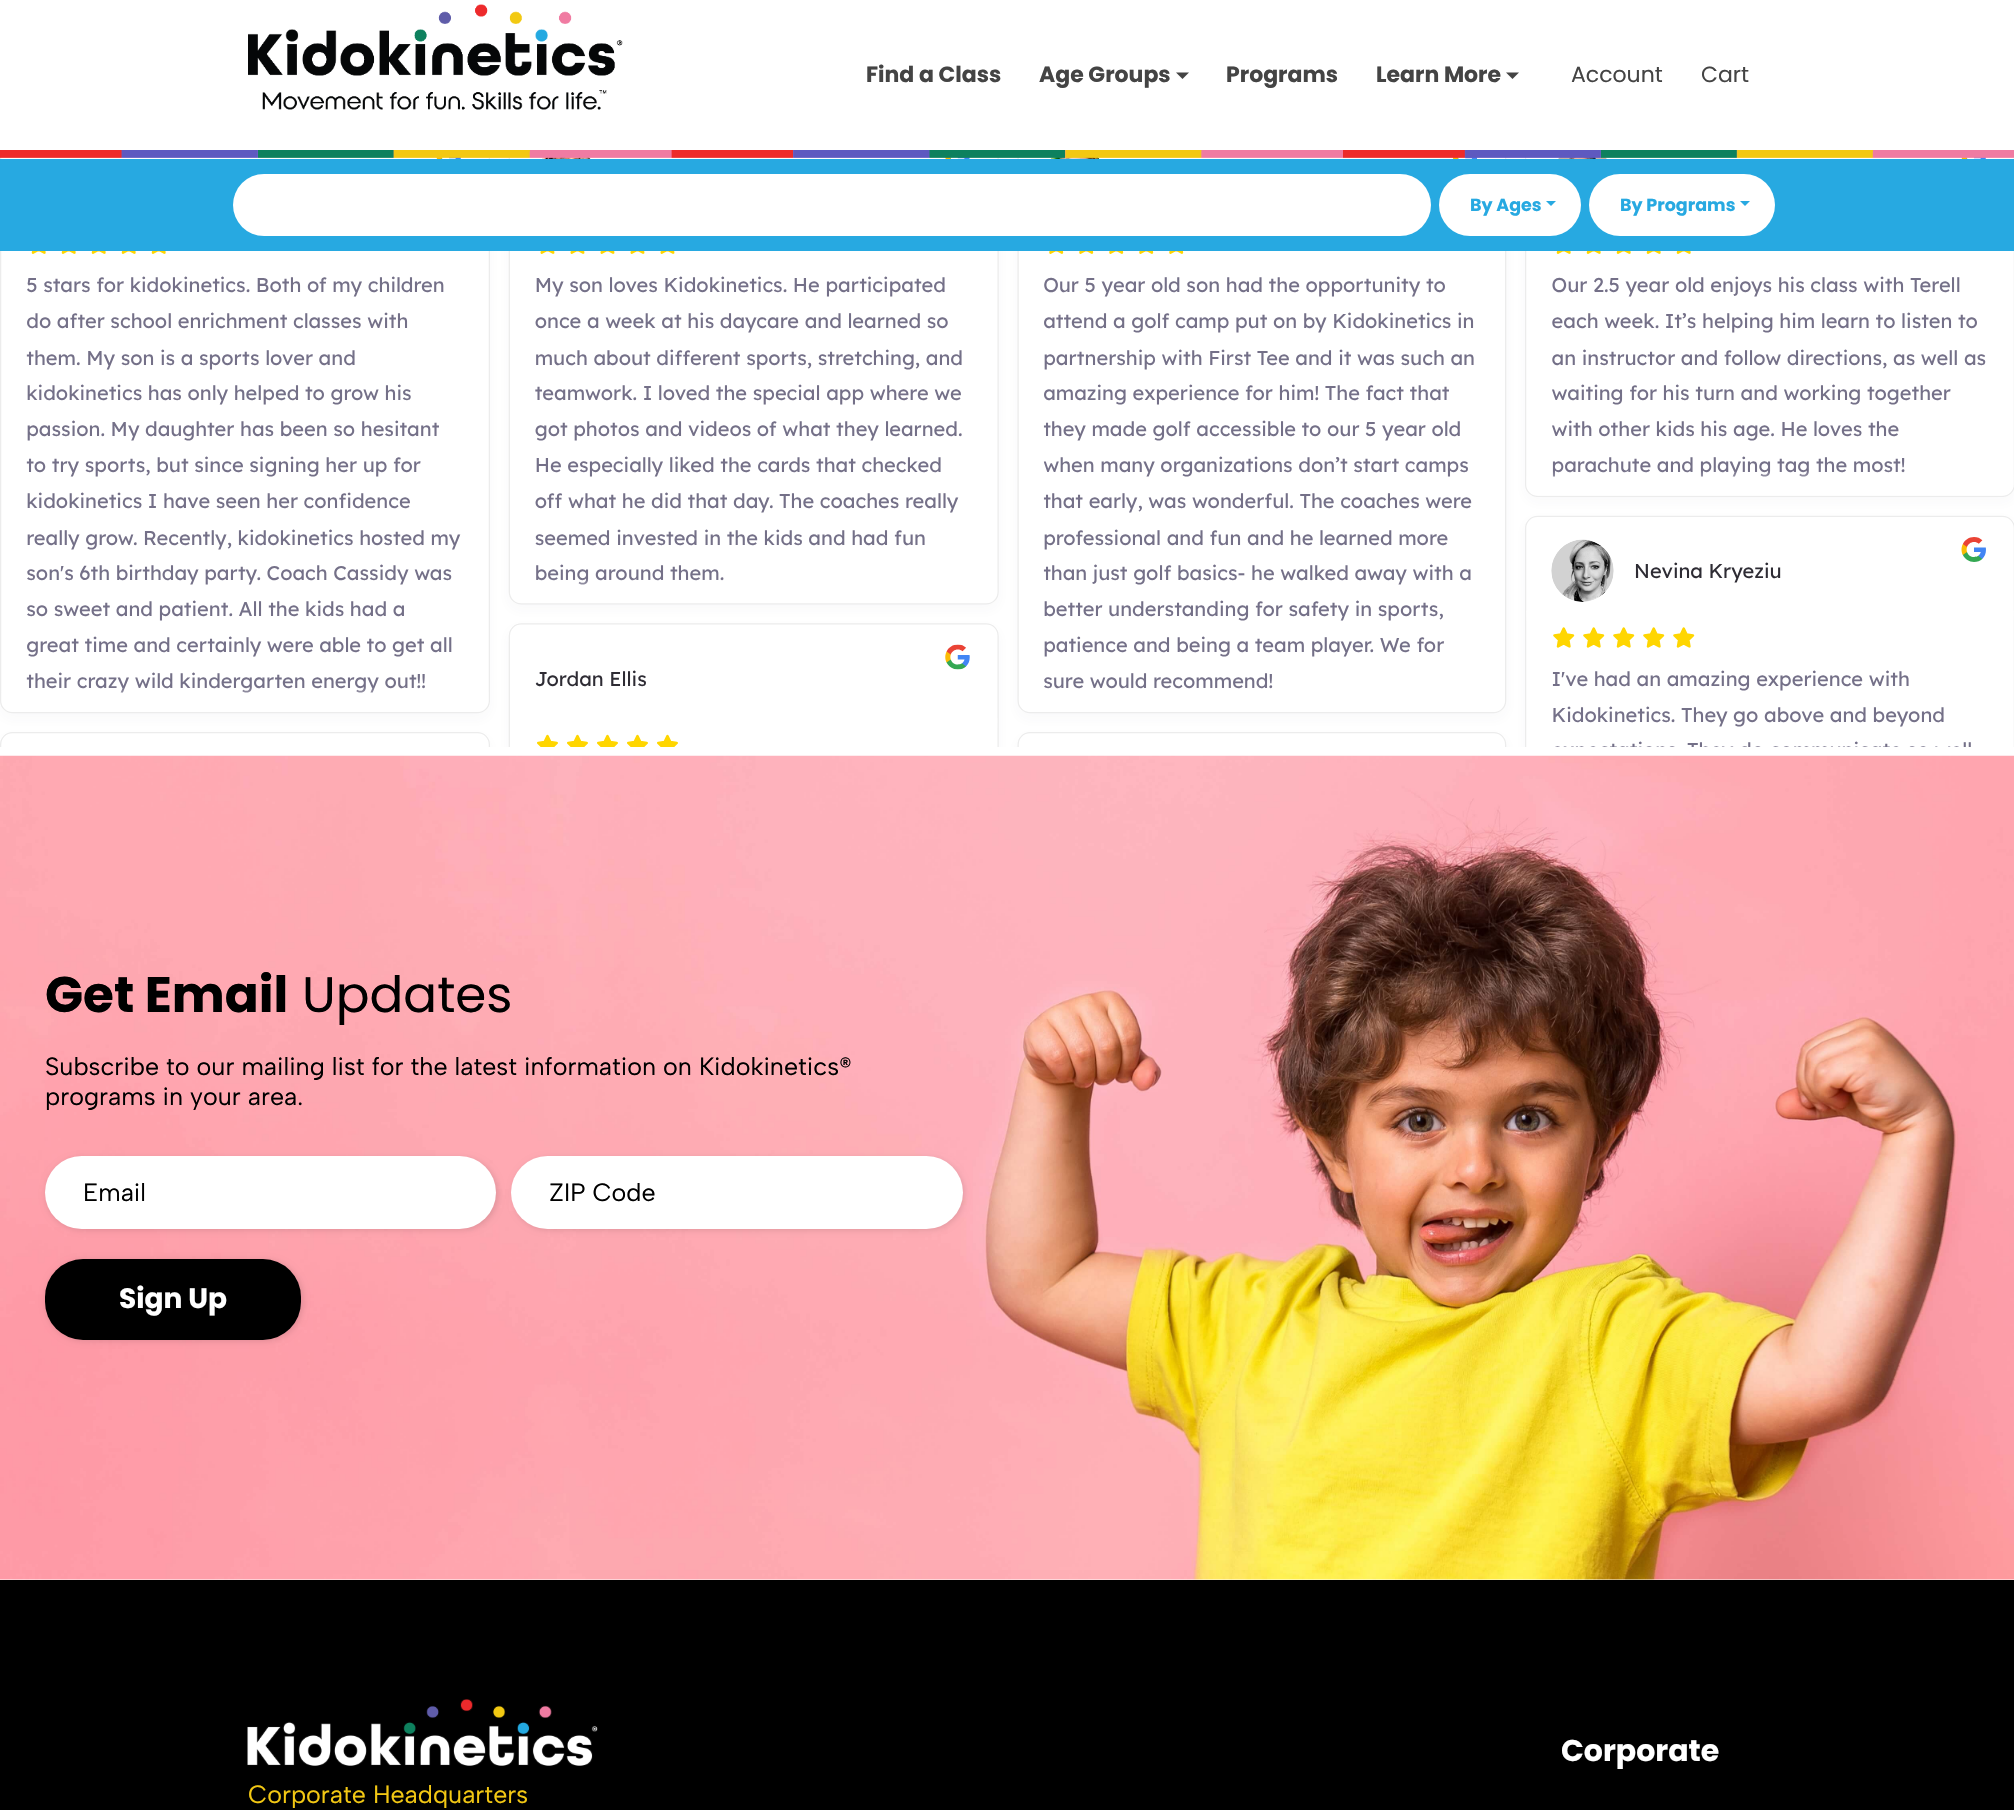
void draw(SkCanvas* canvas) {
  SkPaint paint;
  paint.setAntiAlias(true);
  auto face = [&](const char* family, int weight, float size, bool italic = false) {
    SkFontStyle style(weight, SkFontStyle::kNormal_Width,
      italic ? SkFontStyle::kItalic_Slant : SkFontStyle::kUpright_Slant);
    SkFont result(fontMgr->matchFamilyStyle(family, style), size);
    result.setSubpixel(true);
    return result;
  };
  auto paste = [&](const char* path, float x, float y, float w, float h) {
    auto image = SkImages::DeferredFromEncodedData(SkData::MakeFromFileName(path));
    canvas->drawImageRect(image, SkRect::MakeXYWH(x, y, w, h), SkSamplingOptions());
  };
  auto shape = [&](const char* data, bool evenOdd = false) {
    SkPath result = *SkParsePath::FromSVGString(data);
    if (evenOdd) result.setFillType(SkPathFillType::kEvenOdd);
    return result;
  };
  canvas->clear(0xffffffff);
  paste("img/1.png", 248, 4, 375, 106);
  paint.setColor(0xff444444);
  canvas->drawPath(shape("M1176 72.5H1189L1182.5 79Z"), paint);
  canvas->drawPath(shape("M1506 72.5H1519L1512.5 79Z"), paint);
  paste("img/3.png", 0, 157, 2014, 590);
  paste("img/2.png", 0, 150, 2014, 8);
  paint.setColor(0xff27a9e1);
  canvas->drawRect(SkRect::MakeXYWH(0, 159, 2014, 92), paint);
  paint.setColor(0xffffffff);
  canvas->drawRoundRect(SkRect::MakeXYWH(233, 174, 1198, 62), 31, 31, paint);
  canvas->drawRoundRect(SkRect::MakeXYWH(1439, 174, 142, 62), 31, 31, paint);
  paint.setColor(0xff27a9e1);
  canvas->drawPath(shape("M1546 201H1556L1551 206Z"), paint);
  paint.setColor(0xffffffff);
  canvas->drawRoundRect(SkRect::MakeXYWH(1589, 174, 186, 62), 31, 31, paint);
  paint.setColor(0xff27a9e1);
  canvas->drawPath(shape("M1740 201H1750L1745 206Z"), paint);
  paste("img/4.png", 0, 755, 2014, 825);
  paint.setColor(0x1f000000);
  paint.setMaskFilter(SkMaskFilter::MakeBlur(kNormal_SkBlurStyle, 3));
  canvas->drawRoundRect(SkRect::MakeXYWH(46, 1158, 452, 72), 36, 36, paint);
  paint.setMaskFilter(nullptr);
  paint.setColor(0xffffffff);
  canvas->drawRoundRect(SkRect::MakeXYWH(45, 1156, 451, 73), 36.5f, 36.5f, paint);
  paint.setColor(0x1f000000);
  paint.setMaskFilter(SkMaskFilter::MakeBlur(kNormal_SkBlurStyle, 3));
  canvas->drawRoundRect(SkRect::MakeXYWH(513, 1158, 451, 72), 36, 36, paint);
  paint.setMaskFilter(nullptr);
  paint.setColor(0xffffffff);
  canvas->drawRoundRect(SkRect::MakeXYWH(511, 1156, 452, 73), 36.5f, 36.5f, paint);
  paint.setColor(0x1f000000);
  paint.setMaskFilter(SkMaskFilter::MakeBlur(kNormal_SkBlurStyle, 3));
  canvas->drawRoundRect(SkRect::MakeXYWH(46, 1260, 257, 81), 38, 38, paint);
  paint.setMaskFilter(nullptr);
  paint.setColor(0xff000000);
  canvas->drawRoundRect(SkRect::MakeXYWH(45, 1259, 256, 81), 38, 38, paint);
  canvas->drawRect(SkRect::MakeXYWH(0, 1580, 2014, 230), paint);
  paste("img/5.png", 247, 1699, 351, 67);
  auto f0 = face("Poppins", 700, 22);
  paint.setColor(0xff444444);
  {
    const struct { const char* s; float x, y; } items[] = {
      {"Find a Class", 866, 82},
      {"Age Groups", 1039, 82},
      {"Programs", 1226, 82},
      {"Learn More", 1376, 82},
    };
    for (auto [s, x, y] : items) {
      canvas->drawString(s, x, y, f0, paint);
    }
  }
  auto f1 = face("Poppins", 400, 22);
  canvas->drawString("Account", 1571, 82, f1, paint);
  canvas->drawString("Cart", 1701, 82, f1, paint);
  auto f2 = face("Poppins", 700, 17.5f);
  paint.setColor(0xff27a9e1);
  canvas->drawString("By Ages", 1470, 211, f2, paint);
  canvas->drawString("By Programs", 1620, 211, f2, paint);
  auto f3 = face("Poppins", 700, 50);
  paint.setColor(0xff000000);
  canvas->drawString("Get Email", 45, 1012, f3, paint);
  auto f4 = face("Poppins", 400, 50);
  canvas->drawString("Updates", 302, 1012, f4, paint);
  auto f5 = face("Albert Sans", 400, 25);
  {
    const struct { const char* s; float x, y; } items[] = {
      {"Subscribe to our mailing list for the latest information on Kidokinetics®", 45, 1075},
      {"programs in your area.", 45, 1105},
      {"Email", 83, 1201},
      {"ZIP Code", 549, 1201},
    };
    for (auto [s, x, y] : items) {
      canvas->drawString(s, x, y, f5, paint);
    }
  }
  auto f6 = face("Poppins", 700, 28);
  paint.setColor(0xffffffff);
  canvas->drawString("Sign Up", 119, 1308, f6, paint);
  auto f7 = face("Poppins", 700, 30);
  canvas->drawString("Corporate", 1561, 1761, f7, paint);
  paint.setColor(0xfff3c813);
  canvas->drawString("Corporate Headquarters", 248, 1803, f5, paint);
}
